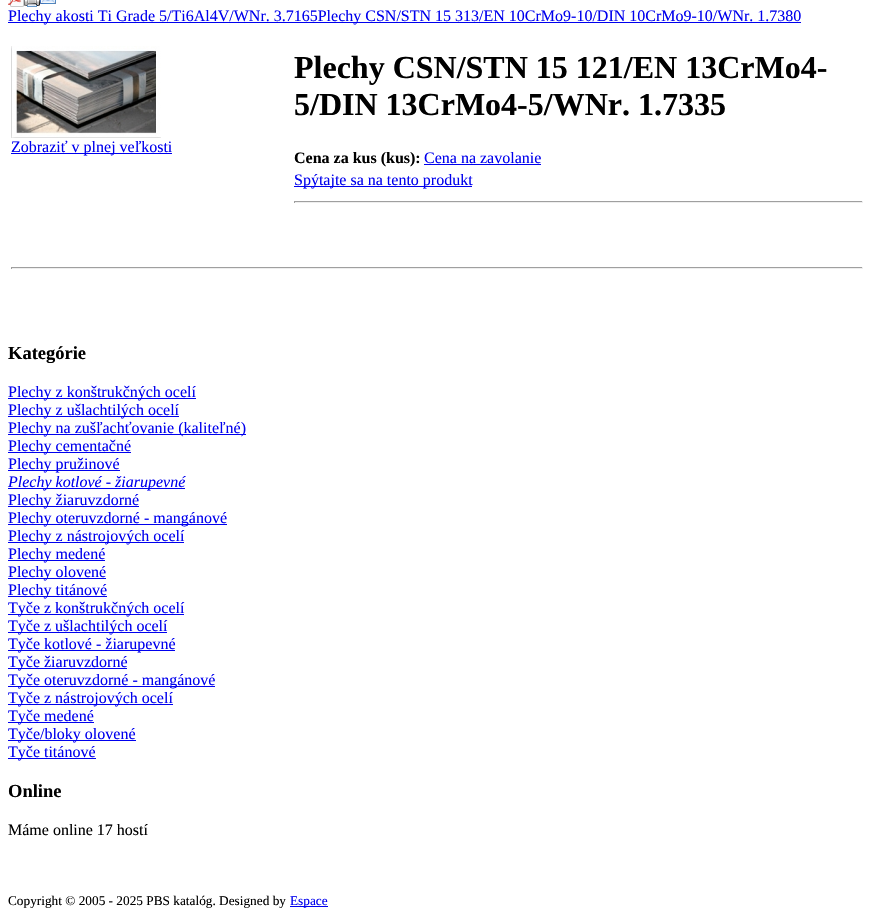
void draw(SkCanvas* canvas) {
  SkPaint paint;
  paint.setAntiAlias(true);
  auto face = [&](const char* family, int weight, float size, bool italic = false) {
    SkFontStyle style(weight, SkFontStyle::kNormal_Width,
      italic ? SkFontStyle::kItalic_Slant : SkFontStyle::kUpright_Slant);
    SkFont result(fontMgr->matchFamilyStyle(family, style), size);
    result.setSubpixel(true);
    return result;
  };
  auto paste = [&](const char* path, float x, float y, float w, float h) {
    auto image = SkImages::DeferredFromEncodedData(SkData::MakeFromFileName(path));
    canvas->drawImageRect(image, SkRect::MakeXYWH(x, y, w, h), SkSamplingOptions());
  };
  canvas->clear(0xffffffff);
  paste("img/1.png", 8, 0, 16, 7);
  paste("img/2.png", 24, 0, 16, 7);
  paste("img/3.png", 40, 0, 16, 4);
  paint.setColor(0xff0000ee);
  canvas->drawRect(SkRect::MakeXYWH(8, 22, 793, 1), paint);
  paste("img/4.png", 11, 46, 150, 92);
  {
    const struct { float x, y, w, h; SkColor color; } items[] = {
      {11, 153, 161, 1, 0xff0000ee},
      {424, 164, 117, 1, 0xff0000ee},
      {294, 186, 178, 1, 0xff0000ee},
      {294, 201, 569, 1, 0xff9f9f9f},
      {862, 201, 1, 2, 0xffeeeeee},
      {294, 202, 569, 1, 0xffeeeeee},
      {294, 201, 1, 2, 0xff9f9f9f},
      {11, 267, 852, 1, 0xff9f9f9f},
      {862, 267, 1, 2, 0xffeeeeee},
      {11, 268, 852, 1, 0xffeeeeee},
      {11, 267, 1, 2, 0xff9f9f9f},
      {8, 398, 188, 1, 0xff0000ee},
      {8, 416, 171, 1, 0xff0000ee},
      {8, 434, 238, 1, 0xff0000ee},
      {8, 452, 123, 1, 0xff0000ee},
      {8, 470, 112, 1, 0xff0000ee},
      {8, 488, 177, 1, 0xff0000ee},
      {8, 506, 131, 1, 0xff0000ee},
      {8, 524, 219, 1, 0xff0000ee},
      {8, 542, 176, 1, 0xff0000ee},
      {8, 560, 97, 1, 0xff0000ee},
      {8, 578, 98, 1, 0xff0000ee},
      {8, 596, 99, 1, 0xff0000ee},
      {8, 614, 176, 1, 0xff0000ee},
      {8, 632, 159, 1, 0xff0000ee},
      {8, 650, 167, 1, 0xff0000ee},
      {8, 668, 119, 1, 0xff0000ee},
      {8, 686, 207, 1, 0xff0000ee},
      {8, 704, 165, 1, 0xff0000ee},
      {8, 722, 86, 1, 0xff0000ee},
      {8, 740, 128, 1, 0xff0000ee},
      {8, 758, 88, 1, 0xff0000ee},
      {290, 906, 38, 1, 0xff0000ee},
    };
    for (auto [x, y, w, h, color] : items) {
      paint.setColor(color);
      canvas->drawRect(SkRect::MakeXYWH(x, y, w, h), paint);
    }
  }
  auto f0 = face("Liberation Serif", 400, 16);
  canvas->drawString("Plechy akosti Ti Grade 5/Ti6Al4V/WNr. 3.7165Plechy CSN/STN 15 313/EN 10CrMo9-10/DIN 10CrMo9-10/WNr. 1.7380", 8, 21, f0, paint);
  auto f1 = face("Liberation Serif", 700, 32);
  paint.setColor(0xff000000);
  canvas->drawString("Plechy CSN/STN 15 121/EN 13CrMo4-", 294, 78, f1, paint);
  canvas->drawString("5/DIN 13CrMo4-5/WNr. 1.7335", 294, 115, f1, paint);
  paint.setColor(0xff0000ee);
  canvas->drawString("Zobraziť v plnej veľkosti", 11, 152, f0, paint);
  auto f2 = face("Liberation Serif", 700, 16);
  paint.setColor(0xff000000);
  canvas->drawString("Cena za kus (kus):", 294, 163, f2, paint);
  paint.setColor(0xff0000ee);
  canvas->drawString("Cena na zavolanie", 424, 163, f0, paint);
  canvas->drawString("Spýtajte sa na tento produkt", 294, 185, f0, paint);
  auto f3 = face("Liberation Serif", 700, 18.5f);
  paint.setColor(0xff000000);
  canvas->drawString("Kategórie", 8, 359, f3, paint);
  paint.setColor(0xff0000ee);
  {
    const struct { const char* s; float x, y; } items[] = {
      {"Plechy z konštrukčných ocelí", 8, 397},
      {"Plechy z ušlachtilých ocelí", 8, 415},
      {"Plechy na zušľachťovanie (kaliteľné)", 8, 433},
      {"Plechy cementačné", 8, 451},
      {"Plechy pružinové", 8, 469},
    };
    for (auto [s, x, y] : items) {
      canvas->drawString(s, x, y, f0, paint);
    }
  }
  auto f4 = face("Liberation Serif", 400, 16, true);
  canvas->drawString("Plechy kotlové - žiarupevné", 8, 487, f4, paint);
  {
    const struct { const char* s; float x, y; } items[] = {
      {"Plechy žiaruvzdorné", 8, 505},
      {"Plechy oteruvzdorné - mangánové", 8, 523},
      {"Plechy z nástrojových ocelí", 8, 541},
      {"Plechy medené", 8, 559},
      {"Plechy olovené", 8, 577},
      {"Plechy titánové", 8, 595},
      {"Tyče z konštrukčných ocelí", 8, 613},
      {"Tyče z ušlachtilých ocelí", 8, 631},
      {"Tyče kotlové - žiarupevné", 8, 649},
      {"Tyče žiaruvzdorné", 8, 667},
      {"Tyče oteruvzdorné - mangánové", 8, 685},
      {"Tyče z nástrojových ocelí", 8, 703},
      {"Tyče medené", 8, 721},
      {"Tyče/bloky olovené", 8, 739},
      {"Tyče titánové", 8, 757},
    };
    for (auto [s, x, y] : items) {
      canvas->drawString(s, x, y, f0, paint);
    }
  }
  paint.setColor(0xff000000);
  canvas->drawString("Online", 8, 797, f3, paint);
  canvas->drawString("Máme online 17 hostí", 8, 835, f0, paint);
  auto f5 = face("Liberation Serif", 400, 13.3f);
  canvas->drawString("Copyright © 2005 - 2025 PBS katalóg. Designed by", 8, 905, f5, paint);
  paint.setColor(0xff0000ee);
  canvas->drawString("Espace", 290, 905, f5, paint);
}
